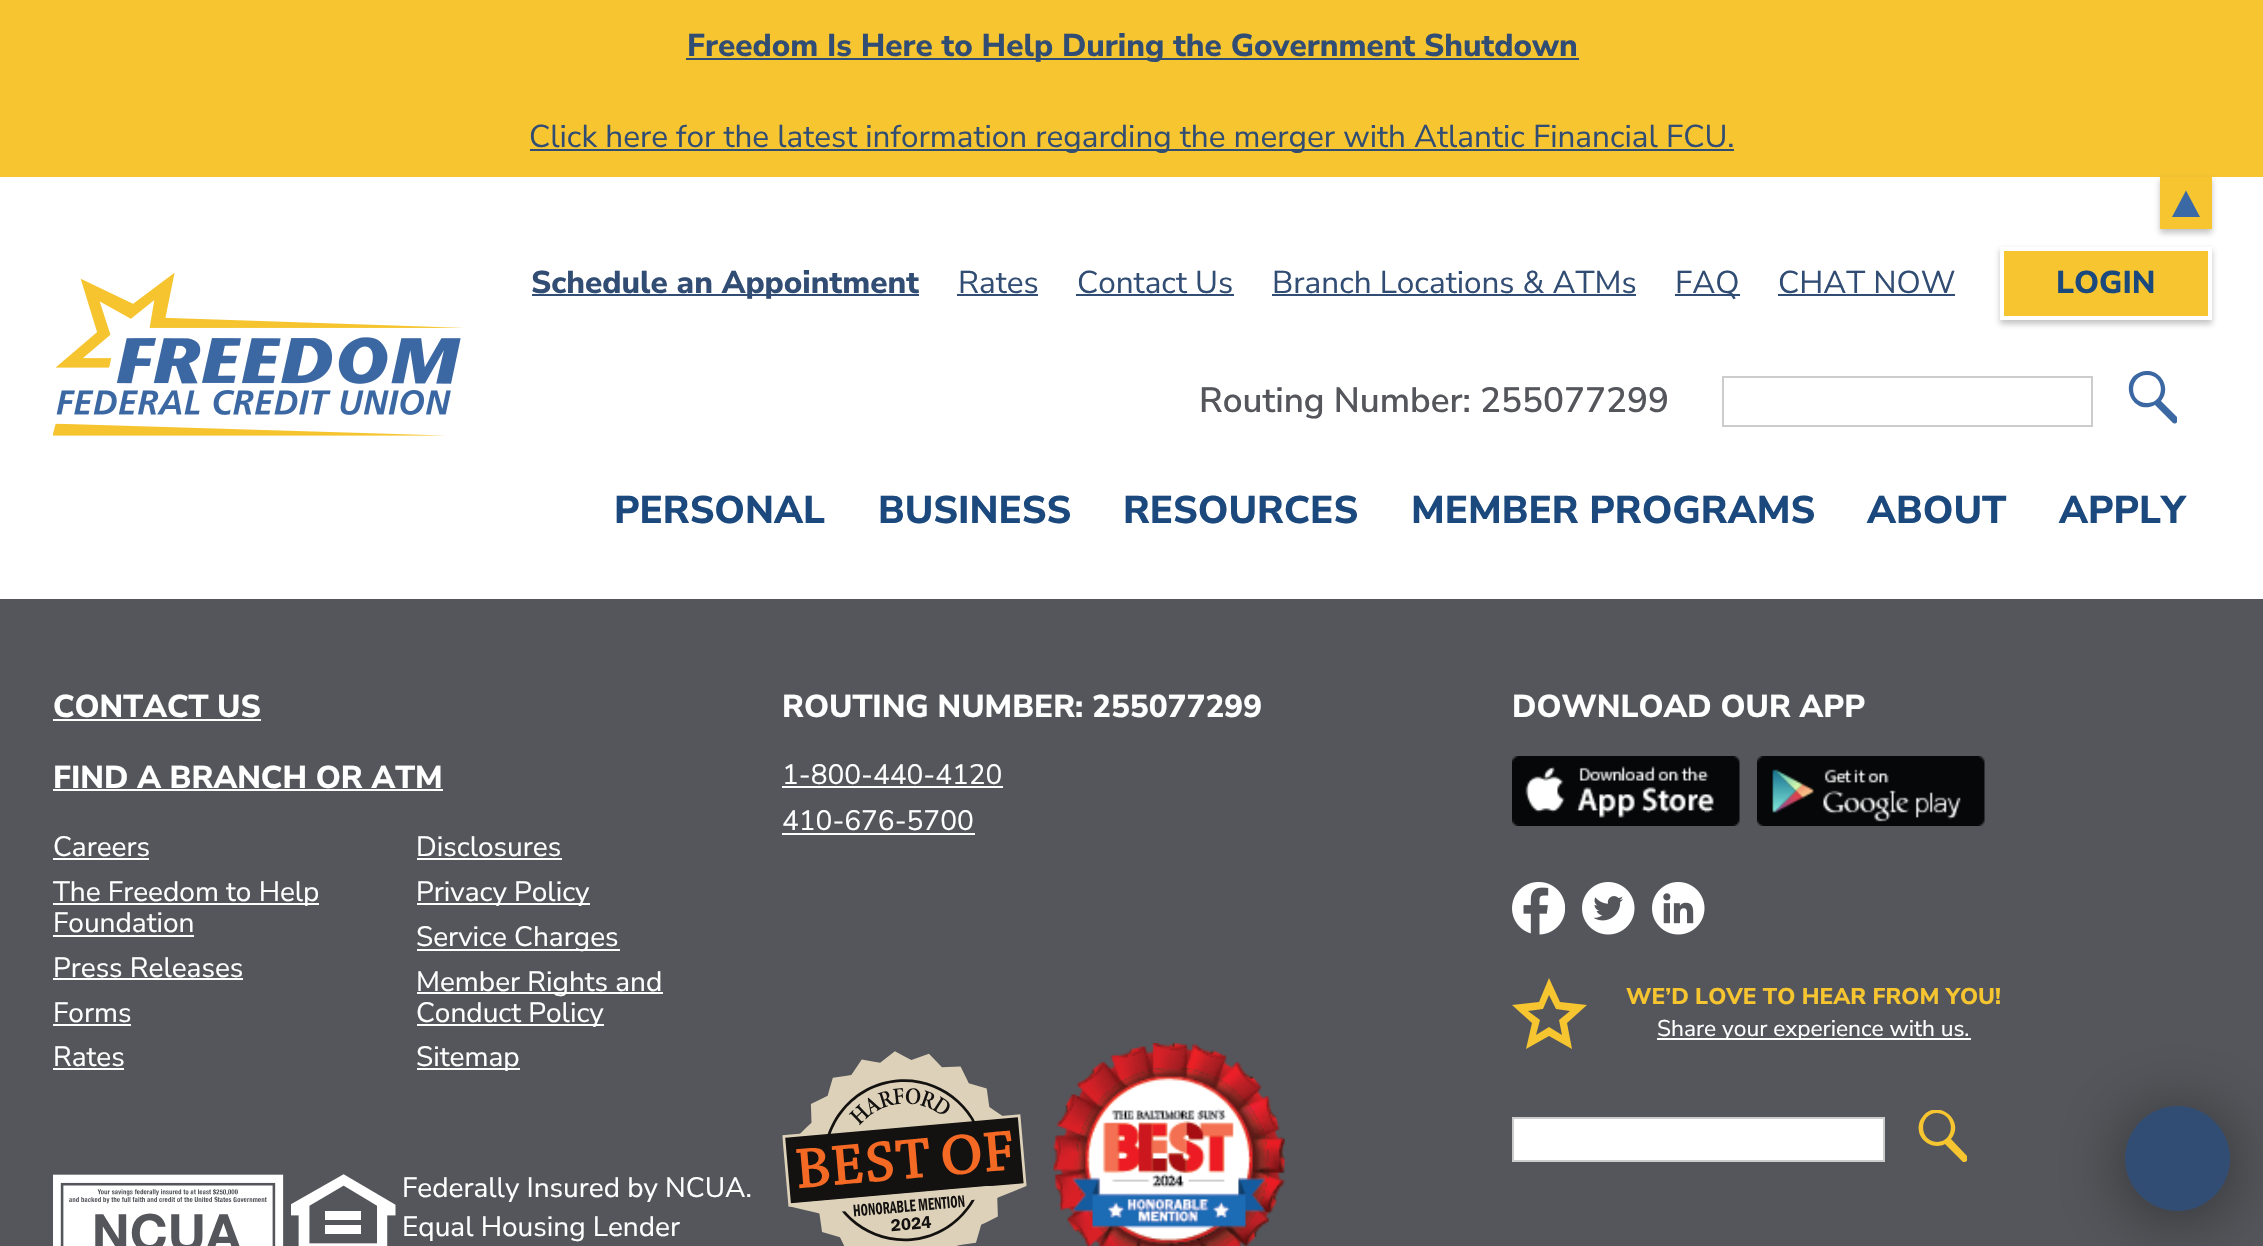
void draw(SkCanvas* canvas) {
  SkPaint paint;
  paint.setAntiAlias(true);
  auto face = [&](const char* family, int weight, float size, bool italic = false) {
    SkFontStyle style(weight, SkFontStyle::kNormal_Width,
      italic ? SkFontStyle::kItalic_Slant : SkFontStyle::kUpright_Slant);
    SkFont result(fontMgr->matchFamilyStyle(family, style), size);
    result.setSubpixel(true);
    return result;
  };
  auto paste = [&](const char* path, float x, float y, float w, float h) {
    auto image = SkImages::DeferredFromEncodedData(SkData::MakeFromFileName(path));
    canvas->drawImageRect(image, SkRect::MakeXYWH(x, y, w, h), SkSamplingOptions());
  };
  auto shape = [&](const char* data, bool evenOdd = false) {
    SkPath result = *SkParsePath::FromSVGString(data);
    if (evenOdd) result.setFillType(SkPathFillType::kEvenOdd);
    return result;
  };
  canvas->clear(0xffffffff);
  {
    const struct { float x, y, w, h; SkColor color; } items[] = {
      {0, 0, 2263, 177, 0xfff6c530},
      {686, 58, 893, 2, 0xff324d73},
      {530, 149, 1204, 2, 0xff324d73},
    };
    for (auto [x, y, w, h, color] : items) {
      paint.setColor(color);
      canvas->drawRect(SkRect::MakeXYWH(x, y, w, h), paint);
    }
  }
  paint.setColor(0x4d373737);
  paint.setMaskFilter(SkMaskFilter::MakeBlur(kNormal_SkBlurStyle, 3));
  canvas->drawRect(SkRect::MakeXYWH(2160, 180, 52, 53), paint);
  paint.setMaskFilter(nullptr);
  paint.setColor(0xfff6c530);
  canvas->drawRect(SkRect::MakeXYWH(2160, 177, 52, 52), paint);
  paint.setColor(0xff3b69a5);
  canvas->drawPath(shape("M2200 217H2172L2186 190.5Z"), paint);
  paste("img/1.png", 53, 273, 411, 163);
  {
    const struct { float x, y, w, h; SkColor color; } items[] = {
      {532, 294, 387, 2, 0xff324d73},
      {957, 294, 81, 2, 0xff324d73},
      {1076, 294, 158, 2, 0xff324d73},
      {1272, 294, 364, 2, 0xff324d73},
      {1675, 294, 65, 2, 0xff324d73},
      {1778, 294, 177, 2, 0xff324d73},
    };
    for (auto [x, y, w, h, color] : items) {
      paint.setColor(color);
      canvas->drawRect(SkRect::MakeXYWH(x, y, w, h), paint);
    }
  }
  paint.setColor(0x4d373737);
  paint.setMaskFilter(SkMaskFilter::MakeBlur(kNormal_SkBlurStyle, 3));
  canvas->drawRect(SkRect::MakeXYWH(2000, 250, 212, 74), paint);
  paint.setMaskFilter(nullptr);
  paint.setColor(0xfff6c530);
  canvas->drawRect(SkRect::MakeXYWH(2002, 249, 208, 69), paint);
  paint.setStroke(true);
  paint.setStrokeWidth(4);
  paint.setColor(0xffffffff);
  canvas->drawRect(SkRect::MakeXYWH(2002, 249, 208, 69), paint);
  paint.setStrokeWidth(2);
  paint.setColor(0xffcccccc);
  canvas->drawRect(SkRect::MakeXYWH(1723, 377, 369, 49), paint);
  canvas->save();
  canvas->clipRect(SkRect::MakeXYWH(2128, 371, 49, 53));
  paint.setStroke(false);
  paint.setColor(0xff3b68a3);
  canvas->drawPath(shape("M2177 417L2161 401C2168 393 2166 380 2157 374C2153 371 2147 370 2141 372C2117 380 2132 417 2155 405L2173 423C2176 425 2180 420 2177 417ZM2147 403C2128 403 2129 375 2147 375C2166 375 2165 404 2147 403Z"), paint);
  canvas->restore();
  {
    const struct { float x, y, w, h; SkColor color; } items[] = {
      {0, 599, 2263, 647, 0xff54565b},
      {53, 719, 208, 2, 0xffffffff},
      {53, 789, 390, 2, 0xffffffff},
      {53, 858, 96, 2, 0xffffffff},
      {417, 858, 145, 2, 0xffffffff},
      {53, 903, 266, 2, 0xffffffff},
      {53, 935, 141, 2, 0xffffffff},
      {417, 903, 173, 2, 0xffffffff},
      {417, 949, 203, 2, 0xffffffff},
      {53, 978, 190, 2, 0xffffffff},
      {53, 1024, 78, 2, 0xffffffff},
      {417, 992, 246, 2, 0xffffffff},
      {417, 1024, 187, 2, 0xffffffff},
      {53, 1068, 71, 2, 0xffffffff},
      {417, 1068, 103, 2, 0xffffffff},
    };
    for (auto [x, y, w, h, color] : items) {
      paint.setColor(color);
      canvas->drawRect(SkRect::MakeXYWH(x, y, w, h), paint);
    }
  }
  paste("img/2.png", 53, 1174, 231, 72);
  paste("img/3.png", 291, 1174, 105, 72);
  canvas->drawRect(SkRect::MakeXYWH(782, 786, 221, 2), paint);
  canvas->drawRect(SkRect::MakeXYWH(782, 833, 193, 2), paint);
  paste("img/4.png", 782, 1051, 245, 195);
  paste("img/5.png", 1053, 1043, 232, 203);
  paste("img/6.png", 1512, 756, 228, 70);
  paste("img/7.png", 1757, 756, 228, 70);
  paste("img/8.png", 1512, 882, 53, 53);
  paste("img/9.png", 1582, 882, 53, 53);
  paste("img/10.png", 1652, 882, 53, 53);
  paint.setColor(0xfff6c530);
  canvas->drawPath(shape("M1549 995L1543 1009L1528 1011L1540 1020L1536 1035L1549 1027L1562 1035L1559 1020L1570 1011L1556 1009L1549 995M1549 978L1560 1002L1587 1005L1567 1023L1572 1049L1549 1036L1526 1049L1532 1023L1512 1005L1539 1002Z"), paint);
  paint.setColor(0xffffffff);
  canvas->drawRect(SkRect::MakeXYWH(1657, 1038, 314, 2), paint);
  canvas->drawRect(SkRect::MakeXYWH(1513, 1118, 371, 43), paint);
  paint.setStroke(true);
  paint.setColor(0xffcccccc);
  canvas->drawRect(SkRect::MakeXYWH(1513, 1118, 371, 43), paint);
  canvas->save();
  canvas->clipRect(SkRect::MakeXYWH(1918, 1110, 49, 52));
  paint.setStroke(false);
  paint.setColor(0xfff6c530);
  canvas->drawPath(shape("M1967 1156L1951 1139C1967 1119 1934 1096 1921 1119C1918 1124 1918 1130 1920 1135C1924 1144 1936 1149 1945 1144L1963 1162C1966 1163 1970 1159 1967 1156ZM1937 1142C1918 1141 1919 1113 1937 1113C1956 1114 1955 1142 1937 1142Z"), paint);
  canvas->restore();
  paint.setColor(0x75000000);
  paint.setMaskFilter(SkMaskFilter::MakeBlur(kNormal_SkBlurStyle, 35));
  canvas->drawRoundRect(SkRect::MakeXYWH(2125, 1113, 105, 105), 52.5f, 52.5f, paint);
  paint.setMaskFilter(nullptr);
  paint.setColor(0xff324d73);
  canvas->drawCircle(2177.5f, 1158.5f, 52.5f, paint);
  auto f0 = face("Nunito Sans", 800, 31.5f);
  canvas->drawString("Freedom Is Here to Help During the Government Shutdown", 687, 56, f0, paint);
  auto f1 = face("Nunito Sans", 400, 31.5f);
  canvas->drawString("Click here for the latest information regarding the merger with Atlantic Financial FCU.", 529, 147, f1, paint);
  canvas->drawString("Schedule an Appointment", 531, 293, f0, paint);
  {
    const struct { const char* s; float x, y; } items[] = {
      {"Rates", 958, 293},
      {"Contact Us", 1077, 293},
      {"Branch Locations & ATMs", 1272, 293},
      {"FAQ", 1675, 293},
      {"CHAT NOW", 1778, 293},
    };
    for (auto [s, x, y] : items) {
      canvas->drawString(s, x, y, f1, paint);
    }
  }
  paint.setColor(0xff1b497d);
  canvas->drawString("LOGIN", 2056, 293, f0, paint);
  auto f2 = face("Nunito Sans", 600, 35);
  paint.setColor(0xff54565b);
  canvas->drawString("Routing Number: 255077299", 1199, 412, f2, paint);
  auto f3 = face("Nunito Sans", 800, 38.5f);
  paint.setColor(0xff1b497d);
  {
    const struct { const char* s; float x, y; } items[] = {
      {"PERSONAL", 614, 523},
      {"BUSINESS", 878, 523},
      {"RESOURCES", 1123, 523},
      {"MEMBER PROGRAMS", 1411, 523},
      {"ABOUT", 1867, 523},
      {"APPLY", 2059, 523},
    };
    for (auto [s, x, y] : items) {
      canvas->drawString(s, x, y, f3, paint);
    }
  }
  paint.setColor(0xffffffff);
  canvas->drawString("CONTACT US", 53, 717, f0, paint);
  canvas->drawString("FIND A BRANCH OR ATM", 53, 788, f0, paint);
  auto f4 = face("Nunito Sans", 400, 28);
  {
    const struct { const char* s; float x, y; } items[] = {
      {"Careers", 53, 856},
      {"Disclosures", 416, 856},
      {"The Freedom to Help", 53, 901},
      {"Foundation", 53, 932},
      {"Privacy Policy", 416, 901},
      {"Service Charges", 416, 946},
      {"Press Releases", 53, 977},
      {"Forms", 53, 1022},
      {"Member Rights and", 416, 991},
      {"Conduct Policy", 416, 1022},
      {"Rates", 53, 1066},
      {"Sitemap", 416, 1066},
      {"Federally Insured by NCUA.", 402, 1197},
      {"Equal Housing Lender", 402, 1236},
    };
    for (auto [s, x, y] : items) {
      canvas->drawString(s, x, y, f4, paint);
    }
  }
  canvas->drawString("ROUTING NUMBER: 255077299", 782, 717, f0, paint);
  canvas->drawString("1-800-440-4120", 782, 784, f4, paint);
  canvas->drawString("410-676-5700", 782, 830, f4, paint);
  canvas->drawString("DOWNLOAD OUR APP", 1512, 717, f0, paint);
  auto f5 = face("Nunito Sans", 800, 22.75f);
  paint.setColor(0xfff6c530);
  canvas->drawString("WE’D LOVE TO HEAR FROM YOU!", 1626, 1004, f5, paint);
  auto f6 = face("Nunito Sans", 400, 22.75f);
  paint.setColor(0xffffffff);
  canvas->drawString("Share your experience with us.", 1657, 1036, f6, paint);
}
